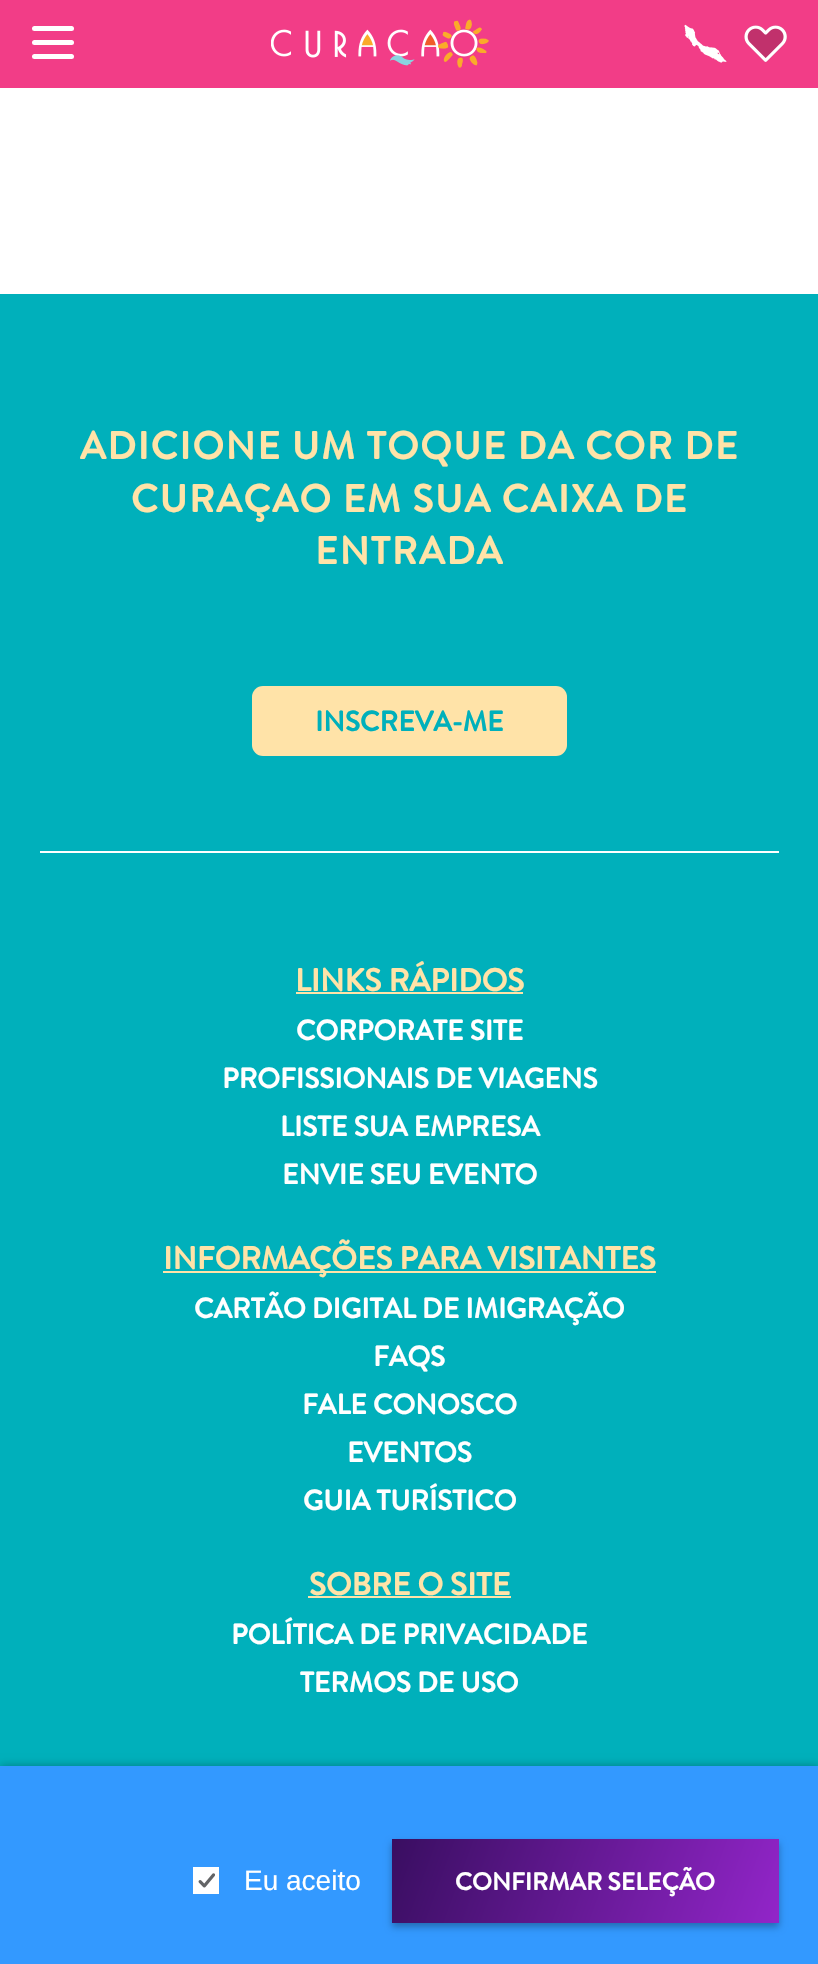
void draw(SkCanvas* canvas) {
  SkPaint paint;
  paint.setAntiAlias(true);
  auto face = [&](const char* family, int weight, float size, bool italic = false) {
    SkFontStyle style(weight, SkFontStyle::kNormal_Width,
      italic ? SkFontStyle::kItalic_Slant : SkFontStyle::kUpright_Slant);
    SkFont result(fontMgr->matchFamilyStyle(family, style), size);
    result.setSubpixel(true);
    return result;
  };
  auto writeSpaced = [&](const char* s, float x, float y, const SkFont& font, const SkPaint& ink, float letter, float word) {
    std::vector<SkGlyphID> glyphs(font.countText(s, strlen(s), SkTextEncoding::kUTF8));
    std::vector<float> xs(glyphs.size());
    font.textToGlyphs(s, strlen(s), SkTextEncoding::kUTF8, glyphs);
    font.getXPos(glyphs, xs, x);
    float extra = 0;
    for (size_t i = 0; i < glyphs.size(); i++) {
      xs[i] += extra;
      extra += letter + word * (glyphs[i] == font.unicharToGlyph(' '));
    }
    canvas->drawTextBlob(SkTextBlob::MakeFromPosHGlyphs(glyphs, xs, y, font), 0, 0, ink);
  };
  auto paste = [&](const char* path, float x, float y, float w, float h) {
    auto image = SkImages::DeferredFromEncodedData(SkData::MakeFromFileName(path));
    canvas->drawImageRect(image, SkRect::MakeXYWH(x, y, w, h), SkSamplingOptions());
  };
  canvas->clear(0xffffffff);
  paint.setColor(0xfff23d87);
  canvas->drawRect(SkRect::MakeXYWH(0, 0, 818, 88), paint);
  paint.setColor(0xffffffff);
  canvas->drawRoundRect(SkRect::MakeXYWH(32, 26, 42, 5), 2.5f, 2.5f, paint);
  canvas->drawRoundRect(SkRect::MakeXYWH(32, 40, 42, 5), 2.5f, 2.5f, paint);
  canvas->drawRoundRect(SkRect::MakeXYWH(32, 54, 42, 5), 2.5f, 2.5f, paint);
  paste("img/1.png", 271, 19, 218, 49);
  paste("img/2.png", 684, 24, 43, 39);
  paste("img/3.png", 744, 25, 43, 37);
  paint.setColor(0xff00b0bb);
  canvas->drawRect(SkRect::MakeXYWH(0, 294, 818, 1472), paint);
  paint.setColor(0xffffe3a8);
  canvas->drawRoundRect(SkRect::MakeXYWH(252, 686, 315, 70), 11, 11, paint);
  {
    const struct { float x, y, w, h; SkColor color; } items[] = {
      {40, 851, 739, 2, 0xffffffff},
      {296, 992, 227, 2, 0xffffe3a8},
      {163, 1271, 493, 2, 0xffffe3a8},
      {308, 1596, 203, 2, 0xffffe3a8},
    };
    for (auto [x, y, w, h, color] : items) {
      paint.setColor(color);
      canvas->drawRect(SkRect::MakeXYWH(x, y, w, h), paint);
    }
  }
  paint.setColor(0x4d000000);
  paint.setMaskFilter(SkMaskFilter::MakeBlur(kNormal_SkBlurStyle, 4.5f));
  canvas->drawRect(SkRect::MakeXYWH(0, 1766, 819, 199), paint);
  paint.setMaskFilter(nullptr);
  paint.setColor(0xff3399ff);
  canvas->drawRect(SkRect::MakeXYWH(0, 1766, 818, 198), paint);
  paint.setColor(0xffffffff);
  canvas->drawRect(SkRect::MakeXYWH(193, 1867, 26, 27), paint);
  paste("img/4.png", 198, 1873, 17, 15);
  paint.setColor(0x4d000000);
  paint.setMaskFilter(SkMaskFilter::MakeBlur(kNormal_SkBlurStyle, 3.5f));
  canvas->drawRect(SkRect::MakeXYWH(392, 1843, 387, 84), paint);
  paint.setMaskFilter(nullptr);
  {
    const SkColor colors[] = {0xff9225c9, 0xff390e61};
    const float stops[] = {0, 1};
    const SkPoint ends[] = {{770, 1948}, {401, 1814}};
    paint.setShader(SkGradientShader::MakeLinear(ends, colors, stops, 2, SkTileMode::kClamp));
    paint.setAlpha(255);
  }
  canvas->drawRect(SkRect::MakeXYWH(392, 1839, 387, 84), paint);
  auto f0 = face("Brandon Grotesque", 700, 38.5f);
  paint.setShader(nullptr);
  paint.setColor(0xffffe3a8);
  {
    const struct { const char* s; float x, y; } items[] = {
      {"ADICIONE UM TOQUE DA COR DE", 80, 459},
      {"CURAÇAO EM SUA CAIXA DE", 131, 512},
      {"ENTRADA", 315, 564},
    };
    for (auto [s, x, y] : items) {
      writeSpaced(s, x, y, f0, paint, 1.75f, 0);
    }
  }
  auto f1 = face("Brandon Grotesque", 700, 28);
  paint.setColor(0xff00b0bb);
  canvas->drawString("INSCREVA-ME", 315, 731, f1, paint);
  auto f2 = face("Brandon Grotesque", 700, 31.5f);
  paint.setColor(0xffffe3a8);
  canvas->drawString("LINKS RÁPIDOS", 295, 991, f2, paint);
  paint.setColor(0xffffffff);
  {
    const struct { const char* s; float x, y; } items[] = {
      {"CORPORATE SITE", 296, 1040},
      {"PROFISSIONAIS DE VIAGENS", 222, 1088},
      {"LISTE SUA EMPRESA", 280, 1136},
      {"ENVIE SEU EVENTO", 282, 1184},
    };
    for (auto [s, x, y] : items) {
      canvas->drawString(s, x, y, f1, paint);
    }
  }
  paint.setColor(0xffffe3a8);
  canvas->drawString("INFORMAÇÕES PARA VISITANTES", 163, 1269, f2, paint);
  paint.setColor(0xffffffff);
  {
    const struct { const char* s; float x, y; } items[] = {
      {"CARTÃO DIGITAL DE IMIGRAÇÃO", 194, 1318},
      {"FAQS", 373, 1366},
      {"FALE CONOSCO", 302, 1414},
      {"EVENTOS", 347, 1462},
      {"GUIA TURÍSTICO", 303, 1510},
    };
    for (auto [s, x, y] : items) {
      canvas->drawString(s, x, y, f1, paint);
    }
  }
  paint.setColor(0xffffe3a8);
  canvas->drawString("SOBRE O SITE", 309, 1595, f2, paint);
  paint.setColor(0xffffffff);
  canvas->drawString("POLÍTICA DE PRIVACIDADE", 231, 1644, f1, paint);
  canvas->drawString("TERMOS DE USO", 300, 1692, f1, paint);
  auto f3 = face("Liberation Sans", 400, 28);
  canvas->drawString("Eu aceito", 244, 1890, f3, paint);
  auto f4 = face("Brandon Grotesque", 700, 24.5f);
  canvas->drawString("CONFIRMAR SELEÇÃO", 455, 1890, f4, paint);
}
